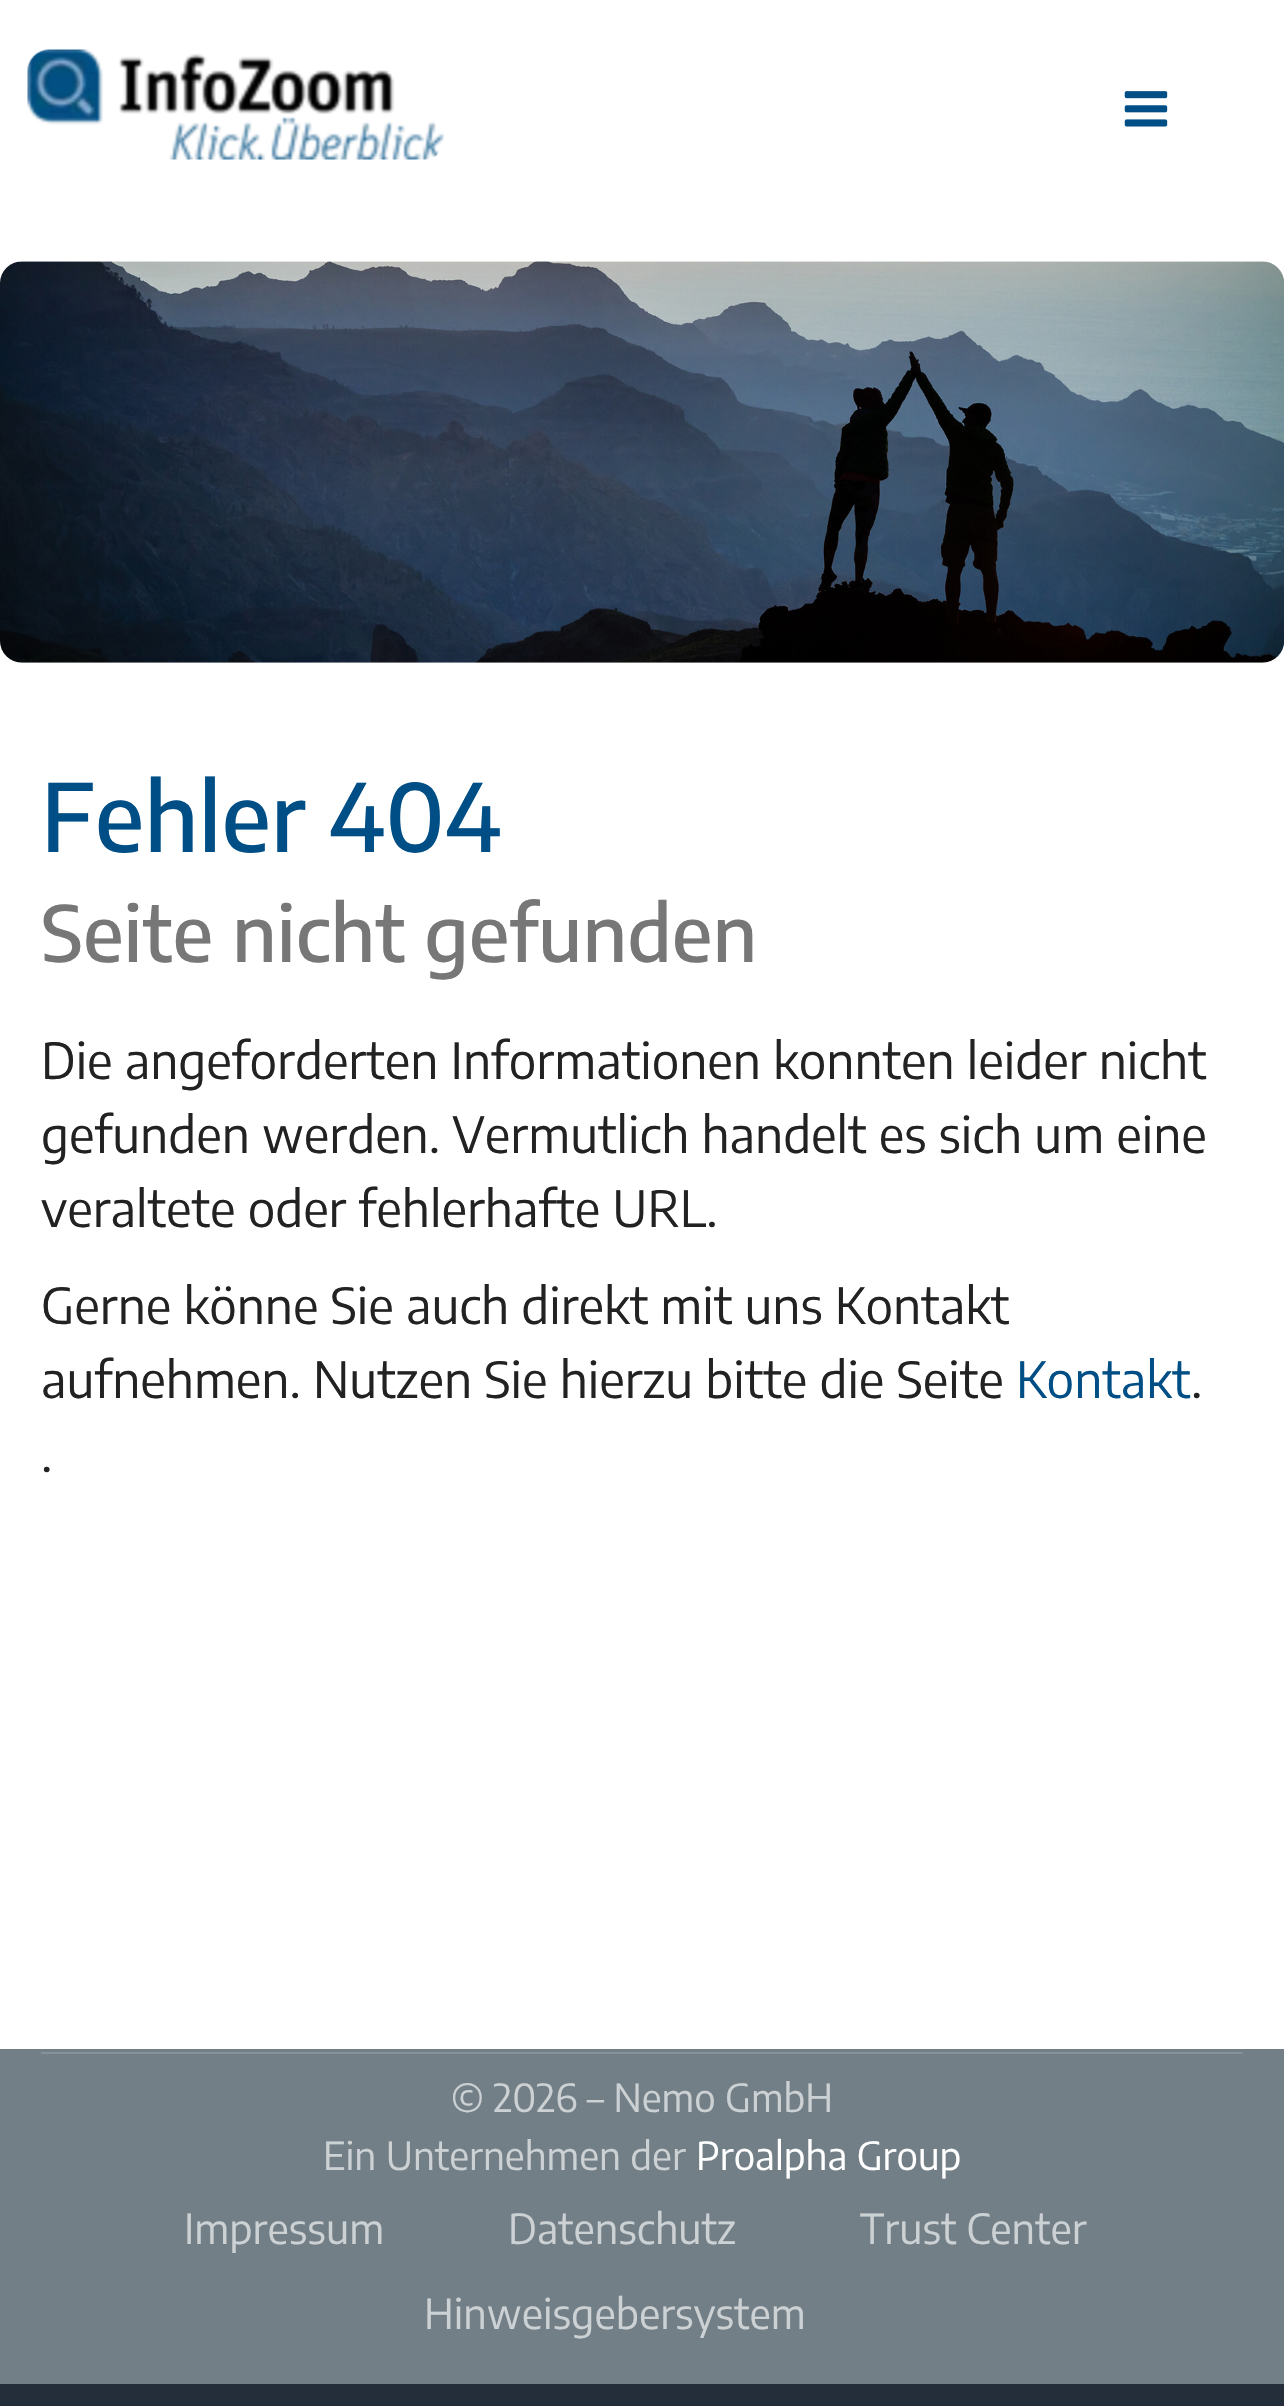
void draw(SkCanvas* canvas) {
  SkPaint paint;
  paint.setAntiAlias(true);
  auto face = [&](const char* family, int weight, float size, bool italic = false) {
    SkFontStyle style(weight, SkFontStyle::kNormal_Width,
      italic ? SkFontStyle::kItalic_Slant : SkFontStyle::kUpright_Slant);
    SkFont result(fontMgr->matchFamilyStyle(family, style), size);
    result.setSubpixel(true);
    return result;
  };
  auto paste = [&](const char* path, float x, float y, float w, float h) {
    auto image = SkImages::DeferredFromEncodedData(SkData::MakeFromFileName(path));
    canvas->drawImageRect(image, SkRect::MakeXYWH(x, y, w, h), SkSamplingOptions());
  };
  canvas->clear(0xffffffff);
  paste("img/1.png", 27, 49, 418, 111);
  paste("img/2.png", 1124, 91, 44, 36);
  paste("img/3.png", 0, 261, 1284, 402);
  {
    const struct { float x, y, w, h; SkColor color; } items[] = {
      {0, 2384, 1284, 22, 0xff232e3a},
      {0, 2049, 1284, 335, 0xff737f87},
      {41, 2052, 1202, 2, 0xff879298},
    };
    for (auto [x, y, w, h, color] : items) {
      paint.setColor(color);
      canvas->drawRect(SkRect::MakeXYWH(x, y, w, h), paint);
    }
  }
  auto f0 = face("Encode Sans Condensed", 100, 93.5f);
  paint.setColor(0xff004e86);
  canvas->drawString("Fehler 404", 41, 852, f0, paint);
  auto f1 = face("Encode Sans Condensed", 100, 77);
  paint.setColor(0xff777777);
  canvas->drawString("Seite nicht gefunden", 41, 962, f1, paint);
  auto f2 = face("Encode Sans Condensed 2", 100, 49.5f);
  paint.setColor(0xff222222);
  {
    const struct { const char* s; float x, y; } items[] = {
      {"Die angeforderten Informationen konnten leider nicht", 41, 1079},
      {"gefunden werden. Vermutlich handelt es sich um eine", 41, 1153},
      {"veraltete oder fehlerhafte URL.", 41, 1227},
      {"Gerne könne Sie auch direkt mit uns Kontakt", 41, 1324},
      {"aufnehmen. Nutzen Sie hierzu bitte die Seite", 41, 1398},
    };
    for (auto [s, x, y] : items) {
      canvas->drawString(s, x, y, f2, paint);
    }
  }
  paint.setColor(0xff004e86);
  canvas->drawString("Kontakt", 1016, 1398, f2, paint);
  paint.setColor(0xff222222);
  canvas->drawString(".", 1191, 1398, f2, paint);
  canvas->drawString(".", 41, 1472, f2, paint);
  auto f3 = face("Encode Sans Condensed 2", 100, 38.5f);
  paint.setColor(0xffccd1d4);
  canvas->drawString("© 2026 – Nemo GmbH", 451, 2112, f3, paint);
  canvas->drawString("Ein Unternehmen der", 323, 2170, f3, paint);
  paint.setColor(0xffffffff);
  canvas->drawString("Proalpha Group", 696, 2170, f3, paint);
  auto f4 = face("Encode Sans Condensed 2", 100, 41.25f);
  paint.setColor(0xffccd1d4);
  {
    const struct { const char* s; float x, y; } items[] = {
      {"Impressum", 184, 2244},
      {"Datenschutz", 508, 2244},
      {"Trust Center", 860, 2244},
      {"Hinweisgebersystem", 424, 2329},
    };
    for (auto [s, x, y] : items) {
      canvas->drawString(s, x, y, f4, paint);
    }
  }
}
